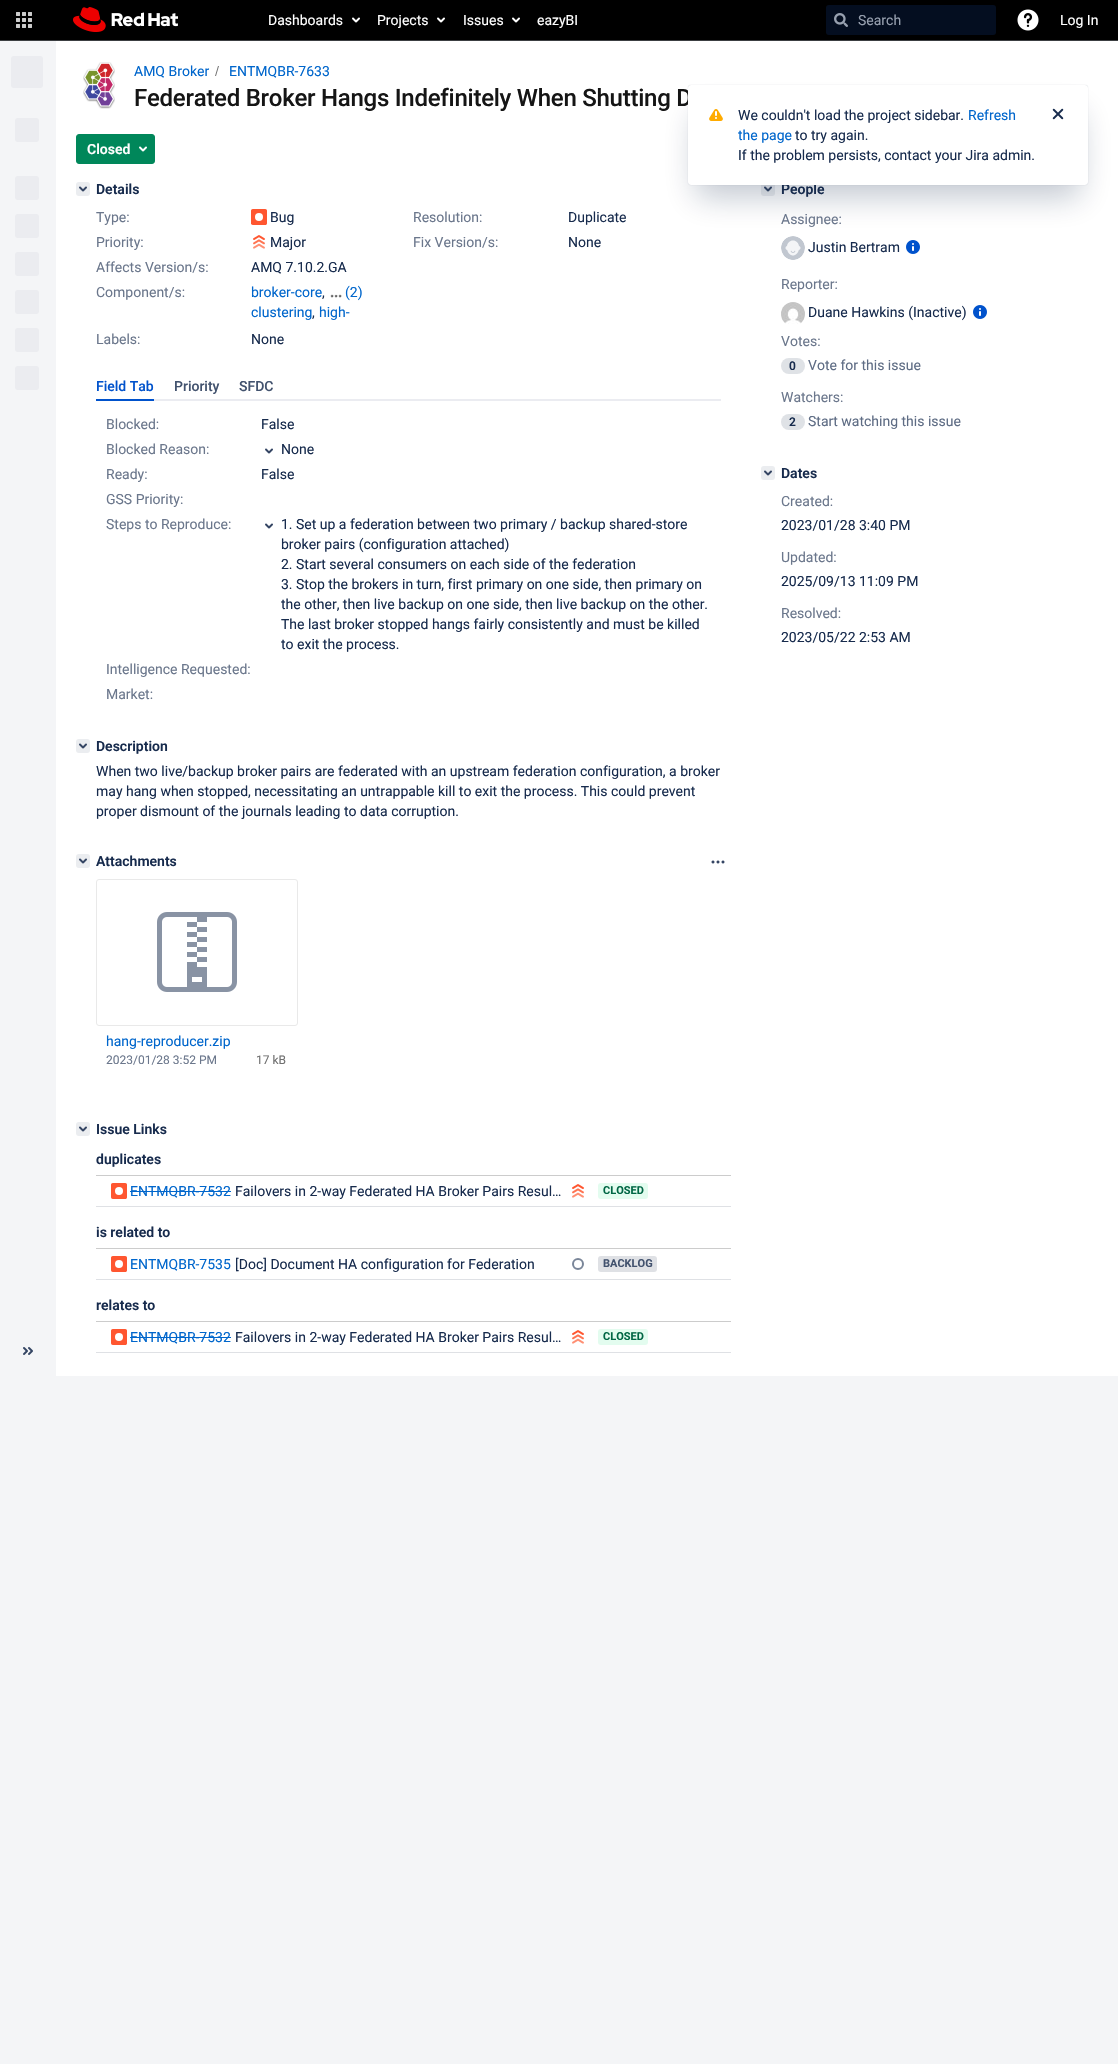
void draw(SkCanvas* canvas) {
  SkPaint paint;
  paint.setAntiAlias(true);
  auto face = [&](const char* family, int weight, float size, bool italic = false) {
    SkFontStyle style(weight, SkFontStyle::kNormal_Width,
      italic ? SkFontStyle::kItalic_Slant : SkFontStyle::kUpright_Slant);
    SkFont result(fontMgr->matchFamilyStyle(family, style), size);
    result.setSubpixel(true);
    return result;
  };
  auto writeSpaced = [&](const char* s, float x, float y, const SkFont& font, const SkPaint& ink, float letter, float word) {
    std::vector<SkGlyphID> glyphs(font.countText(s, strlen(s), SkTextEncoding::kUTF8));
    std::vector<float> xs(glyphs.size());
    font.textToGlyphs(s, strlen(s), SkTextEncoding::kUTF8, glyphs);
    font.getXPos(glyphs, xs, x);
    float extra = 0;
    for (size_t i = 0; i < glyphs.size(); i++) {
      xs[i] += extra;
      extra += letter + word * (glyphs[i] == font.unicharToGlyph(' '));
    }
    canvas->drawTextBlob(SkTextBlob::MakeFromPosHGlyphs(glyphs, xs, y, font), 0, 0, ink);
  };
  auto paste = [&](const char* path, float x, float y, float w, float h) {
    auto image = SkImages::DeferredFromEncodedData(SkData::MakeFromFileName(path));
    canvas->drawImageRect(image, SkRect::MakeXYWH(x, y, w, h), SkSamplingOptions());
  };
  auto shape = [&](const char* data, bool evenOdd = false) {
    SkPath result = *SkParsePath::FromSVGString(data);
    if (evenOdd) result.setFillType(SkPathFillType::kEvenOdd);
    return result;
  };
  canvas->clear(0xfff4f5f7);
  paint.setColor(0xff000000);
  canvas->drawRect(SkRect::MakeXYWH(0, 0, 1118, 40), paint);
  paint.setColor(0xff3c3f42);
  canvas->drawRect(SkRect::MakeXYWH(0, 40, 1118, 1), paint);
  paste("img/1.png", 16, 12, 16, 16);
  paste("img/2.png", 73, 7, 105, 25);
  paste("img/3.png", 352, 17, 8, 6);
  paste("img/3.png", 437, 17, 8, 6);
  paste("img/3.png", 512, 17, 8, 6);
  paint.setColor(0xff040e20);
  canvas->drawRoundRect(SkRect::MakeXYWH(826, 5, 170, 30), 3, 3, paint);
  paste("img/4.png", 834, 13, 14, 14);
  paste("img/5.png", 1017, 9, 22, 22);
  paint.setColor(0xffebecf0);
  canvas->drawRoundRect(SkRect::MakeXYWH(11, 56, 32, 32), 3, 3, paint);
  canvas->drawRoundRect(SkRect::MakeXYWH(15, 118, 24, 24), 3, 3, paint);
  canvas->drawRoundRect(SkRect::MakeXYWH(15, 176, 24, 24), 3, 3, paint);
  canvas->drawRoundRect(SkRect::MakeXYWH(15, 214, 24, 24), 3, 3, paint);
  canvas->drawRoundRect(SkRect::MakeXYWH(15, 252, 24, 24), 3, 3, paint);
  canvas->drawRoundRect(SkRect::MakeXYWH(15, 290, 24, 24), 3, 3, paint);
  canvas->drawRoundRect(SkRect::MakeXYWH(15, 328, 24, 24), 3, 3, paint);
  canvas->drawRoundRect(SkRect::MakeXYWH(15, 366, 24, 24), 3, 3, paint);
  paste("img/6.png", 23, 1347, 10, 8);
  paint.setColor(0xffffffff);
  canvas->drawRect(SkRect::MakeXYWH(56, 41, 1062, 1335), paint);
  paste("img/7.png", 83, 62, 32, 47);
  paint.setColor(0xff707070);
  canvas->drawPath(shape("M216 76L219 66H218L215 76Z"), paint);
  paint.setColor(0xff00875a);
  canvas->drawRoundRect(SkRect::MakeXYWH(76.5f, 134.5f, 78, 29), 2.5f, 2.5f, paint);
  paint.setStroke(true);
  paint.setStrokeWidth(1);
  canvas->drawRoundRect(SkRect::MakeXYWH(76.5f, 134.5f, 78, 29), 2.5f, 2.5f, paint);
  paste("img/8.png", 139, 146, 8, 6);
  paint.setStroke(false);
  paint.setColor(0xffebedf0);
  canvas->drawRoundRect(SkRect::MakeXYWH(76, 182, 14, 14), 3, 3, paint);
  paste("img/9.png", 79, 186, 8, 6);
  paste("img/10.png", 251, 209, 16, 16);
  paste("img/11.png", 253, 235, 12, 14);
  paste("img/12.png", 330, 294, 12, 4);
  paint.setColor(0xff0052cc);
  canvas->drawRect(SkRect::MakeXYWH(96, 399, 58, 2), paint);
  paint.setColor(0xffebecf1);
  canvas->drawRect(SkRect::MakeXYWH(154, 399, 567, 2), paint);
  paste("img/13.png", 265, 448, 8, 6);
  paste("img/13.png", 265, 523, 8, 6);
  paint.setColor(0xffebedf0);
  canvas->drawRoundRect(SkRect::MakeXYWH(76, 739, 14, 14), 3, 3, paint);
  paste("img/9.png", 79, 743, 8, 6);
  canvas->drawRoundRect(SkRect::MakeXYWH(76, 854, 14, 14), 3, 3, paint);
  paste("img/9.png", 79, 858, 8, 6);
  paste("img/14.png", 711, 860, 14, 4);
  paint.setStroke(true);
  paint.setColor(0xffe9e9e9);
  canvas->drawRoundRect(SkRect::MakeXYWH(96.5f, 879.5f, 201, 146), 2.5f, 2.5f, paint);
  paste("img/15.png", 157, 912, 80, 80);
  paint.setStroke(false);
  paint.setColor(0xffebedf0);
  canvas->drawRoundRect(SkRect::MakeXYWH(76, 1122, 14, 14), 3, 3, paint);
  paste("img/9.png", 79, 1126, 8, 6);
  paint.setColor(0xffcccccc);
  canvas->drawRect(SkRect::MakeXYWH(96, 1175, 635, 1), paint);
  paint.setColor(0xffdfe1e5);
  canvas->drawRect(SkRect::MakeXYWH(96, 1206, 635, 1), paint);
  paste("img/16.png", 111, 1183, 16, 16);
  paint.setColor(0xff0066cc);
  canvas->drawRect(SkRect::MakeXYWH(130, 1191, 101, 1), paint);
  paste("img/11.png", 572, 1184, 12, 14);
  paint.setColor(0xffe3fcef);
  canvas->drawRoundRect(SkRect::MakeXYWH(598, 1183, 50, 16), 3, 3, paint);
  paint.setColor(0xffcccccc);
  canvas->drawRect(SkRect::MakeXYWH(96, 1248, 635, 1), paint);
  paint.setColor(0xffdfe1e5);
  canvas->drawRect(SkRect::MakeXYWH(96, 1279, 635, 1), paint);
  paste("img/16.png", 111, 1256, 16, 16);
  paint.setStroke(true);
  paint.setStrokeWidth(2);
  paint.setColor(0xff7a8699);
  canvas->drawCircle(578, 1264, 5, paint);
  paint.setStroke(false);
  paint.setColor(0xffdfe1e5);
  canvas->drawRoundRect(SkRect::MakeXYWH(598, 1256, 59, 16), 3, 3, paint);
  paint.setColor(0xffcccccc);
  canvas->drawRect(SkRect::MakeXYWH(96, 1321, 635, 1), paint);
  paint.setColor(0xffdfe1e5);
  canvas->drawRect(SkRect::MakeXYWH(96, 1352, 635, 1), paint);
  paste("img/16.png", 111, 1329, 16, 16);
  paint.setColor(0xff0066cc);
  canvas->drawRect(SkRect::MakeXYWH(130, 1337, 101, 1), paint);
  paste("img/11.png", 572, 1330, 12, 14);
  paint.setColor(0xffe3fcef);
  canvas->drawRoundRect(SkRect::MakeXYWH(598, 1329, 50, 16), 3, 3, paint);
  paint.setColor(0xffebedf0);
  canvas->drawRoundRect(SkRect::MakeXYWH(761, 182, 14, 14), 3, 3, paint);
  paste("img/9.png", 764, 186, 8, 6);
  paste("img/17.png", 781, 236, 24, 24);
  paste("img/18.png", 906, 240, 14, 14);
  paste("img/19.png", 781, 302, 24, 22);
  paste("img/18.png", 973, 305, 14, 14);
  paint.setColor(0xffdfe2e6);
  canvas->drawRoundRect(SkRect::MakeXYWH(781, 358, 24, 16), 8, 8, paint);
  canvas->drawRoundRect(SkRect::MakeXYWH(781, 414, 24, 16), 8, 8, paint);
  paint.setColor(0xffebedf0);
  canvas->drawRoundRect(SkRect::MakeXYWH(761, 466, 14, 14), 3, 3, paint);
  paste("img/9.png", 764, 470, 8, 6);
  paint.setColor(0x40091e42);
  paint.setMaskFilter(SkMaskFilter::MakeBlur(kNormal_SkBlurStyle, 0.5f));
  canvas->drawRoundRect(SkRect::MakeXYWH(688, 85, 400, 100), 3, 3, paint);
  paint.setMaskFilter(nullptr);
  paint.setMaskFilter(SkMaskFilter::MakeBlur(kNormal_SkBlurStyle, 16));
  canvas->drawRect(SkRect::MakeXYWH(696, 113, 384, 84), paint);
  paint.setMaskFilter(nullptr);
  auto f0 = face("Roboto", 400, 14);
  paint.setColor(0xffffffff);
  {
    const struct { const char* s; float x, y; } items[] = {
      {"Dashboards", 268, 25},
      {"Projects", 377, 25},
      {"Issues", 463, 25},
      {"eazyBI", 537, 25},
    };
    for (auto [s, x, y] : items) {
      canvas->drawString(s, x, y, f0, paint);
    }
  }
  paint.setColor(0xff97a0af);
  canvas->drawString("Search", 858, 25, f0, paint);
  paint.setColor(0xffffffff);
  canvas->drawString("Log In", 1060, 25, f0, paint);
  paint.setColor(0xff0066cc);
  canvas->drawString("AMQ Broker", 134, 76, f0, paint);
  canvas->drawString("ENTMQBR-7633", 229, 76, f0, paint);
  auto f1 = face("Roboto", 500, 24);
  paint.setColor(0xff151515);
  writeSpaced("Federated Broker Hangs Indefinitely When Shutting D", 134, 106, f1, paint, -0.25f, 0);
  auto f2 = face("Roboto", 600, 14);
  paint.setColor(0xffffffff);
  canvas->drawString("Closed", 87, 154, f2, paint);
  paint.setColor(0xff172b4d);
  canvas->drawString("Details", 96, 194, f2, paint);
  paint.setColor(0xff6b778c);
  canvas->drawString("Type:", 96, 222, f0, paint);
  paint.setColor(0xff172b4d);
  canvas->drawString("Bug", 270, 222, f0, paint);
  paint.setColor(0xff6b778c);
  canvas->drawString("Resolution:", 413, 222, f0, paint);
  paint.setColor(0xff172b4d);
  canvas->drawString("Duplicate", 568, 222, f0, paint);
  paint.setColor(0xff6b778c);
  canvas->drawString("Priority:", 96, 247, f0, paint);
  paint.setColor(0xff172b4d);
  canvas->drawString("Major", 270, 247, f0, paint);
  paint.setColor(0xff6b778c);
  canvas->drawString("Fix Version/s:", 413, 247, f0, paint);
  paint.setColor(0xff172b4d);
  canvas->drawString("None", 568, 247, f0, paint);
  paint.setColor(0xff6b778c);
  canvas->drawString("Affects Version/s:", 96, 272, f0, paint);
  paint.setColor(0xff172b4d);
  canvas->drawString("AMQ 7.10.2.GA", 251, 272, f0, paint);
  paint.setColor(0xff6b778c);
  canvas->drawString("Component/s:", 96, 297, f0, paint);
  paint.setColor(0xff0066cc);
  canvas->drawString("broker-core", 251, 297, f0, paint);
  paint.setColor(0xff172b4d);
  canvas->drawString(",", 322, 297, f0, paint);
  paint.setColor(0xff0066cc);
  canvas->drawString("(2)", 345, 297, f0, paint);
  canvas->drawString("clustering", 251, 317, f0, paint);
  paint.setColor(0xff172b4d);
  canvas->drawString(",", 312, 317, f0, paint);
  paint.setColor(0xff0066cc);
  canvas->drawString("high-", 319, 317, f0, paint);
  paint.setColor(0xff6b778c);
  canvas->drawString("Labels:", 96, 344, f0, paint);
  paint.setColor(0xff172b4d);
  canvas->drawString("None", 251, 344, f0, paint);
  auto f3 = face("Roboto", 500, 14);
  paint.setColor(0xff0052cc);
  canvas->drawString("Field Tab", 96, 391, f3, paint);
  paint.setColor(0xff42526e);
  canvas->drawString("Priority", 174, 391, f3, paint);
  canvas->drawString("SFDC", 239, 391, f3, paint);
  paint.setColor(0xff6b778c);
  canvas->drawString("Blocked:", 106, 429, f0, paint);
  paint.setColor(0xff172b4d);
  canvas->drawString("False", 261, 429, f0, paint);
  paint.setColor(0xff6b778c);
  canvas->drawString("Blocked Reason:", 106, 454, f0, paint);
  paint.setColor(0xff172b4d);
  canvas->drawString("None", 281, 454, f0, paint);
  paint.setColor(0xff6b778c);
  canvas->drawString("Ready:", 106, 479, f0, paint);
  paint.setColor(0xff172b4d);
  canvas->drawString("False", 261, 479, f0, paint);
  paint.setColor(0xff6b778c);
  canvas->drawString("GSS Priority:", 106, 504, f0, paint);
  canvas->drawString("Steps to Reproduce:", 106, 529, f0, paint);
  paint.setColor(0xff172b4d);
  {
    const struct { const char* s; float x, y; } items[] = {
      {"1. Set up a federation between two primary / backup shared-store", 281, 529},
      {"broker pairs (configuration attached)", 281, 549},
      {"2. Start several consumers on each side of the federation", 281, 569},
      {"3. Stop the brokers in turn, first primary on one side, then primary on", 281, 589},
      {"the other, then live backup on one side, then live backup on the other.", 281, 609},
      {"The last broker stopped hangs fairly consistently and must be killed", 281, 629},
      {"to exit the process.", 281, 649},
    };
    for (auto [s, x, y] : items) {
      canvas->drawString(s, x, y, f0, paint);
    }
  }
  paint.setColor(0xff6b778c);
  canvas->drawString("Intelligence Requested:", 106, 674, f0, paint);
  canvas->drawString("Market:", 106, 699, f0, paint);
  paint.setColor(0xff172b4d);
  canvas->drawString("Description", 96, 751, f2, paint);
  {
    const struct { const char* s; float x, y; } items[] = {
      {"When two live/backup broker pairs are federated with an upstream federation configuration, a broker", 96, 776},
      {"may hang when stopped, necessitating an untrappable kill to exit the process. This could prevent", 96, 796},
      {"proper dismount of the journals leading to data corruption.", 96, 816},
    };
    for (auto [s, x, y] : items) {
      canvas->drawString(s, x, y, f0, paint);
    }
  }
  canvas->drawString("Attachments", 96, 866, f2, paint);
  paint.setColor(0xff0066cc);
  canvas->drawString("hang-reproducer.zip", 106, 1046, f0, paint);
  auto f4 = face("Roboto", 400, 12);
  paint.setColor(0xff6b778c);
  canvas->drawString("2023/01/28 3:52 PM", 106, 1064, f4, paint);
  paint.setColor(0xff707070);
  canvas->drawString("17 kB", 256, 1064, f4, paint);
  paint.setColor(0xff172b4d);
  canvas->drawString("Issue Links", 96, 1134, f2, paint);
  canvas->drawString("duplicates", 96, 1164, f2, paint);
  paint.setColor(0xff0066cc);
  canvas->drawString("ENTMQBR-7532", 130, 1196, f0, paint);
  paint.setColor(0xff172b4d);
  canvas->drawString("Failovers in 2-way Federated HA Broker Pairs Resul…", 235, 1196, f0, paint);
  auto f5 = face("Roboto", 700, 11);
  paint.setColor(0xff006644);
  canvas->drawString("CLOSED", 603, 1194, f5, paint);
  paint.setColor(0xff172b4d);
  canvas->drawString("is related to", 96, 1237, f2, paint);
  paint.setColor(0xff0066cc);
  canvas->drawString("ENTMQBR-7535", 130, 1269, f0, paint);
  paint.setColor(0xff172b4d);
  canvas->drawString("[Doc] Document HA configuration for Federation", 235, 1269, f0, paint);
  paint.setColor(0xff42526e);
  canvas->drawString("BACKLOG", 603, 1267, f5, paint);
  paint.setColor(0xff172b4d);
  canvas->drawString("relates to", 96, 1310, f2, paint);
  paint.setColor(0xff0066cc);
  canvas->drawString("ENTMQBR-7532", 130, 1342, f0, paint);
  paint.setColor(0xff172b4d);
  canvas->drawString("Failovers in 2-way Federated HA Broker Pairs Resul…", 235, 1342, f0, paint);
  paint.setColor(0xff006644);
  canvas->drawString("CLOSED", 603, 1340, f5, paint);
  paint.setColor(0xff172b4d);
  canvas->drawString("People", 781, 194, f2, paint);
  paint.setColor(0xff6b778c);
  canvas->drawString("Assignee:", 781, 224, f0, paint);
  paint.setColor(0xff172b4d);
  canvas->drawString("Justin Bertram", 808, 252, f0, paint);
  paint.setColor(0xff6b778c);
  canvas->drawString("Reporter:", 781, 289, f0, paint);
  paint.setColor(0xff172b4d);
  canvas->drawString("Duane Hawkins (Inactive)", 808, 317, f0, paint);
  paint.setColor(0xff6b778c);
  canvas->drawString("Votes:", 781, 346, f0, paint);
  auto f6 = face("Roboto", 600, 12);
  paint.setColor(0xff172b4d);
  canvas->drawString("0", 789, 370, f6, paint);
  paint.setColor(0xff5e6c84);
  canvas->drawString("Vote for this issue", 808, 370, f0, paint);
  paint.setColor(0xff6b778c);
  canvas->drawString("Watchers:", 781, 402, f0, paint);
  paint.setColor(0xff172b4d);
  canvas->drawString("2", 789, 426, f6, paint);
  paint.setColor(0xff5e6c84);
  canvas->drawString("Start watching this issue", 808, 426, f0, paint);
  paint.setColor(0xff172b4d);
  canvas->drawString("Dates", 781, 478, f2, paint);
  paint.setColor(0xff6b778c);
  canvas->drawString("Created:", 781, 506, f0, paint);
  paint.setColor(0xff172b4d);
  canvas->drawString("2023/01/28 3:40 PM", 781, 530, f0, paint);
  paint.setColor(0xff6b778c);
  canvas->drawString("Updated:", 781, 562, f0, paint);
  paint.setColor(0xff172b4d);
  canvas->drawString("2025/09/13 11:09 PM", 781, 586, f0, paint);
  paint.setColor(0xff6b778c);
  canvas->drawString("Resolved:", 781, 618, f0, paint);
  paint.setColor(0xff172b4d);
  canvas->drawString("2023/05/22 2:53 AM", 781, 642, f0, paint);
  paint.setColor(0xffffffff);
  canvas->drawRoundRect(SkRect::MakeXYWH(688, 85, 400, 100), 3, 3, paint);
  paste("img/20.png", 709, 109, 14, 12);
  paint.setColor(0xff172b4d);
  canvas->drawString("We couldn't load the project sidebar.", 738, 120, f0, paint);
  paint.setColor(0xff0066cc);
  canvas->drawString("Refresh", 968, 120, f0, paint);
  paste("img/21.png", 1052, 108, 12, 12);
  canvas->drawString("the page", 738, 140, f0, paint);
  paint.setColor(0xff172b4d);
  canvas->drawString("to try again.", 795, 140, f0, paint);
  canvas->drawString("If the problem persists, contact your Jira admin.", 738, 160, f0, paint);
}
